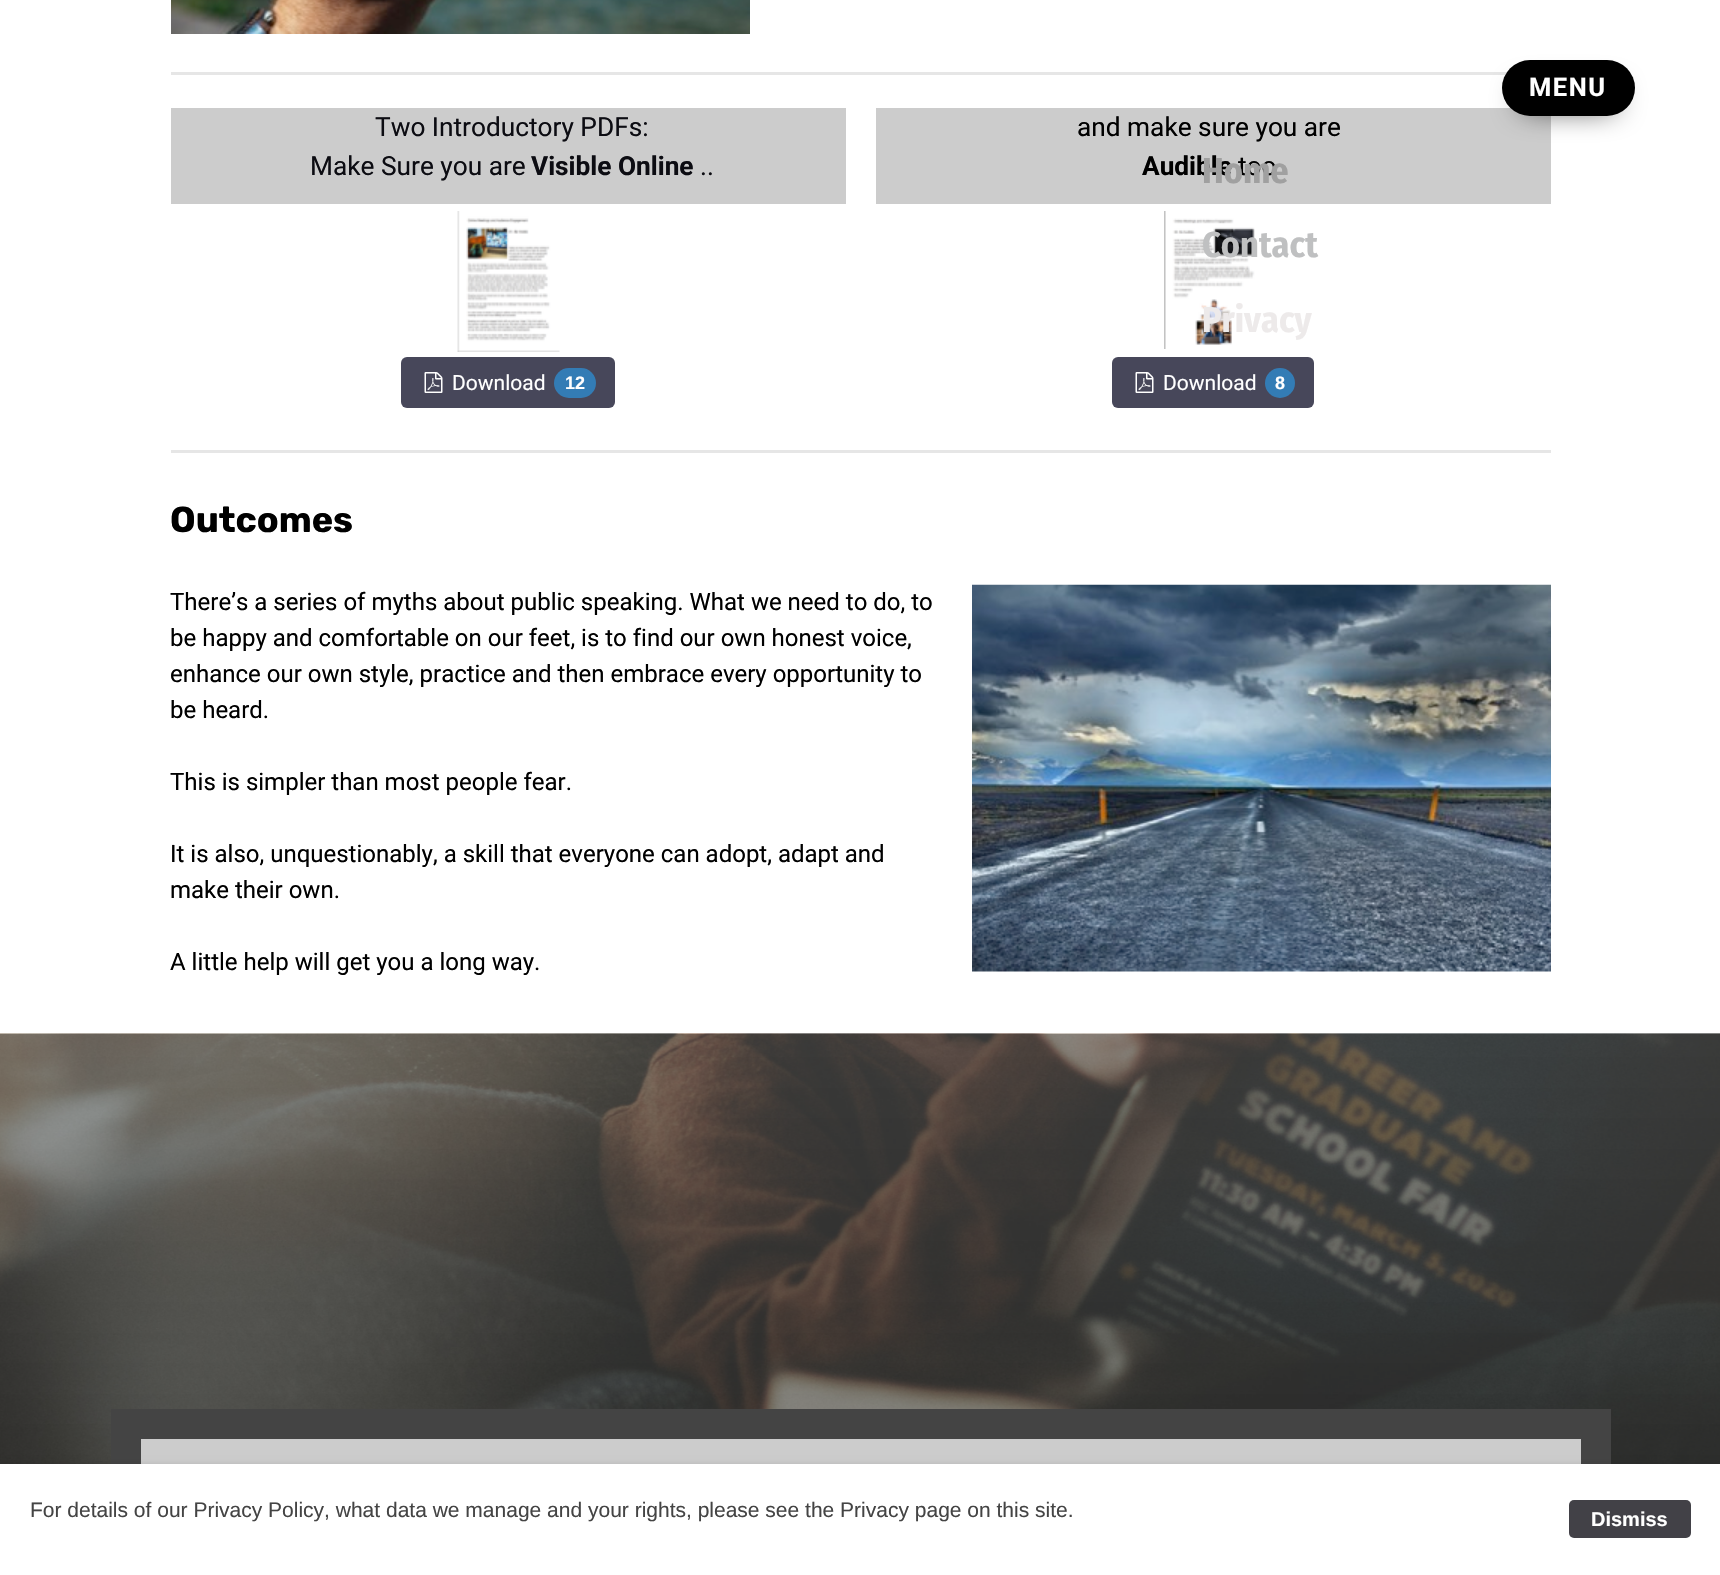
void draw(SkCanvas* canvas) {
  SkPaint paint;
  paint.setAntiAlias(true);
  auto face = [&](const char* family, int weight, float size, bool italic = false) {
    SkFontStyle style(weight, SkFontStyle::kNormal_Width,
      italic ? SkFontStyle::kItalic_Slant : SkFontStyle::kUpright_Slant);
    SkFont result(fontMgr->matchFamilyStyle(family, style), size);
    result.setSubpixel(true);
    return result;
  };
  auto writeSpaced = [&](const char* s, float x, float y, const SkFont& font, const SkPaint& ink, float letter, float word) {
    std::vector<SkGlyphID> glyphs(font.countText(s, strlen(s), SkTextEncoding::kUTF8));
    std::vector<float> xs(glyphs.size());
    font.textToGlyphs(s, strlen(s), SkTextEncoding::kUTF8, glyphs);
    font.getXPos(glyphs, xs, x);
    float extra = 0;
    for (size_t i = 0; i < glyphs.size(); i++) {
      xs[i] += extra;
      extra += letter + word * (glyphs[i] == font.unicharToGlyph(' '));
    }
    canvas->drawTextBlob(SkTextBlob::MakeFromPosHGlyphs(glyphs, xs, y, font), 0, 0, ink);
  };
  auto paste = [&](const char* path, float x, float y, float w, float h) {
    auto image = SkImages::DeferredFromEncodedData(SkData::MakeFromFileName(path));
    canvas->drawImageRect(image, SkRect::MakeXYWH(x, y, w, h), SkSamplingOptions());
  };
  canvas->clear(0xffffffff);
  paste("img/1.png", 171, 0, 579, 34);
  {
    const struct { float x, y, w, h; SkColor color; } items[] = {
      {171, 72, 1336, 3, 0xffe6e6e6},
      {171, 108, 675, 96, 0xffcccccc},
      {876, 108, 675, 96, 0xffcccccc},
    };
    for (auto [x, y, w, h, color] : items) {
      paint.setColor(color);
      canvas->drawRect(SkRect::MakeXYWH(x, y, w, h), paint);
    }
  }
  paste("img/2.png", 457, 211, 103, 141);
  paste("img/3.png", 1164, 211, 91, 138);
  paint.setColor(0xff47475a);
  canvas->drawRoundRect(SkRect::MakeXYWH(401, 357, 214, 51), 6, 6, paint);
  paste("img/4.png", 424, 372, 19, 21);
  paint.setColor(0xff337cb5);
  canvas->drawRoundRect(SkRect::MakeXYWH(554, 368, 42, 30), 15, 15, paint);
  paint.setColor(0xff47475a);
  canvas->drawRoundRect(SkRect::MakeXYWH(1112, 357, 202, 51), 6, 6, paint);
  paste("img/4.png", 1135, 372, 19, 21);
  paint.setColor(0xff337cb5);
  canvas->drawCircle(1280, 383, 15, paint);
  paint.setColor(0xffe6e6e6);
  canvas->drawRect(SkRect::MakeXYWH(171, 450, 1380, 3), paint);
  paste("img/5.png", 972, 584, 579, 388);
  {
    const SkColor colors[] = {0xff707070, 0xff2d2d2d};
    const float stops[] = {0, 1};
    const SkPoint ends[] = {{860, 1034}, {860, 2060}};
    paint.setShader(SkGradientShader::MakeLinear(ends, colors, stops, 2, SkTileMode::kClamp));
    paint.setAlpha(255);
  }
  canvas->drawRect(SkRect::MakeXYWH(0, 1034, 1720, 430), paint);
  paste("img/6.png", 0, 1033, 1720, 431);
  paint.setShader(nullptr);
  paint.setColor(0xff444444);
  canvas->drawRect(SkRect::MakeXYWH(111, 1409, 1500, 55), paint);
  paint.setColor(0xffcccccc);
  canvas->drawRect(SkRect::MakeXYWH(141, 1439, 1440, 25), paint);
  paint.setColor(0xff000000);
  paint.setMaskFilter(SkMaskFilter::MakeBlur(kNormal_SkBlurStyle, 15));
  canvas->drawRoundRect(SkRect::MakeXYWH(1521, 90, 95, 17), 8.5f, 8.5f, paint);
  paint.setMaskFilter(nullptr);
  canvas->drawRoundRect(SkRect::MakeXYWH(1502, 60, 133, 56), 28, 28, paint);
  paint.setColor(0x1a000000);
  paint.setMaskFilter(SkMaskFilter::MakeBlur(kNormal_SkBlurStyle, 3));
  canvas->drawRect(SkRect::MakeXYWH(-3, 1464, 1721, 111), paint);
  paint.setMaskFilter(nullptr);
  paint.setColor(0xffffffff);
  canvas->drawRect(SkRect::MakeXYWH(0, 1464, 1720, 111), paint);
  paint.setColor(0xff424147);
  canvas->drawRoundRect(SkRect::MakeXYWH(1569, 1500, 122, 38), 5, 5, paint);
  auto f0 = face("Roboto", 400, 26.25f);
  paint.setColor(0xff0c0c12);
  canvas->drawString("Two Introductory PDFs:", 375, 136, f0, paint);
  canvas->drawString("Make Sure you are", 310, 175, f0, paint);
  auto f1 = face("Roboto", 700, 26.25f);
  canvas->drawString("Visible Online", 531, 175, f1, paint);
  canvas->drawString("..", 700, 175, f0, paint);
  paint.setColor(0xff000000);
  canvas->drawString("and make sure you are", 1077, 136, f0, paint);
  canvas->drawString("Audible", 1142, 175, f1, paint);
  canvas->drawString("too", 1238, 175, f0, paint);
  auto f2 = face("Roboto", 400, 21);
  paint.setColor(0xffffffff);
  canvas->drawString("Download", 452, 390, f2, paint);
  auto f3 = face("Liberation Sans", 700, 18);
  canvas->drawString("12", 565, 389, f3, paint);
  canvas->drawString("Download", 1163, 390, f2, paint);
  canvas->drawString("8", 1275, 389, f3, paint);
  auto f4 = face("Rubik", 700, 36);
  paint.setColor(0xff000000);
  canvas->drawString("Outcomes", 170, 532, f4, paint);
  auto f5 = face("Roboto", 400, 24);
  {
    const struct { const char* s; float x, y; } items[] = {
      {"There’s a series of myths about public speaking. What we need to do, to", 170, 610},
      {"be happy and comfortable on our feet, is to find our own honest voice,", 170, 646},
      {"enhance our own style, practice and then embrace every opportunity to", 170, 682},
      {"be heard.", 170, 718},
      {"This is simpler than most people fear.", 170, 790},
      {"It is also, unquestionably, a skill that everyone can adopt, adapt and", 170, 862},
      {"make their own.", 170, 898},
      {"A little help will get you a long way.", 170, 970},
    };
    for (auto [s, x, y] : items) {
      canvas->drawString(s, x, y, f5, paint);
    }
  }
  auto f6 = face("Roboto", 700, 25.5f);
  paint.setColor(0xffffffff);
  writeSpaced("MENU", 1529, 96, f6, paint, 1.5f, 0);
  auto f7 = face("Fira Sans Condensed", 700, 36);
  paint.setColor(0xffa0a0a0);
  canvas->drawString("Home", 1202, 183, f7, paint);
  paint.setColor(0xffbfc0c1);
  canvas->drawString("Contact", 1202, 257, f7, paint);
  paint.setColor(0xffedeaea);
  canvas->drawString("Privacy", 1202, 332, f7, paint);
  auto f8 = face("Liberation Sans", 400, 21);
  paint.setColor(0xff444444);
  canvas->drawString("For details of our Privacy Policy, what data we manage and your rights, please see the Privacy page on this site.", 30, 1517, f8, paint);
  auto f9 = face("Liberation Sans", 700, 20);
  paint.setColor(0xffffffff);
  canvas->drawString("Dismiss", 1591, 1526, f9, paint);
}
